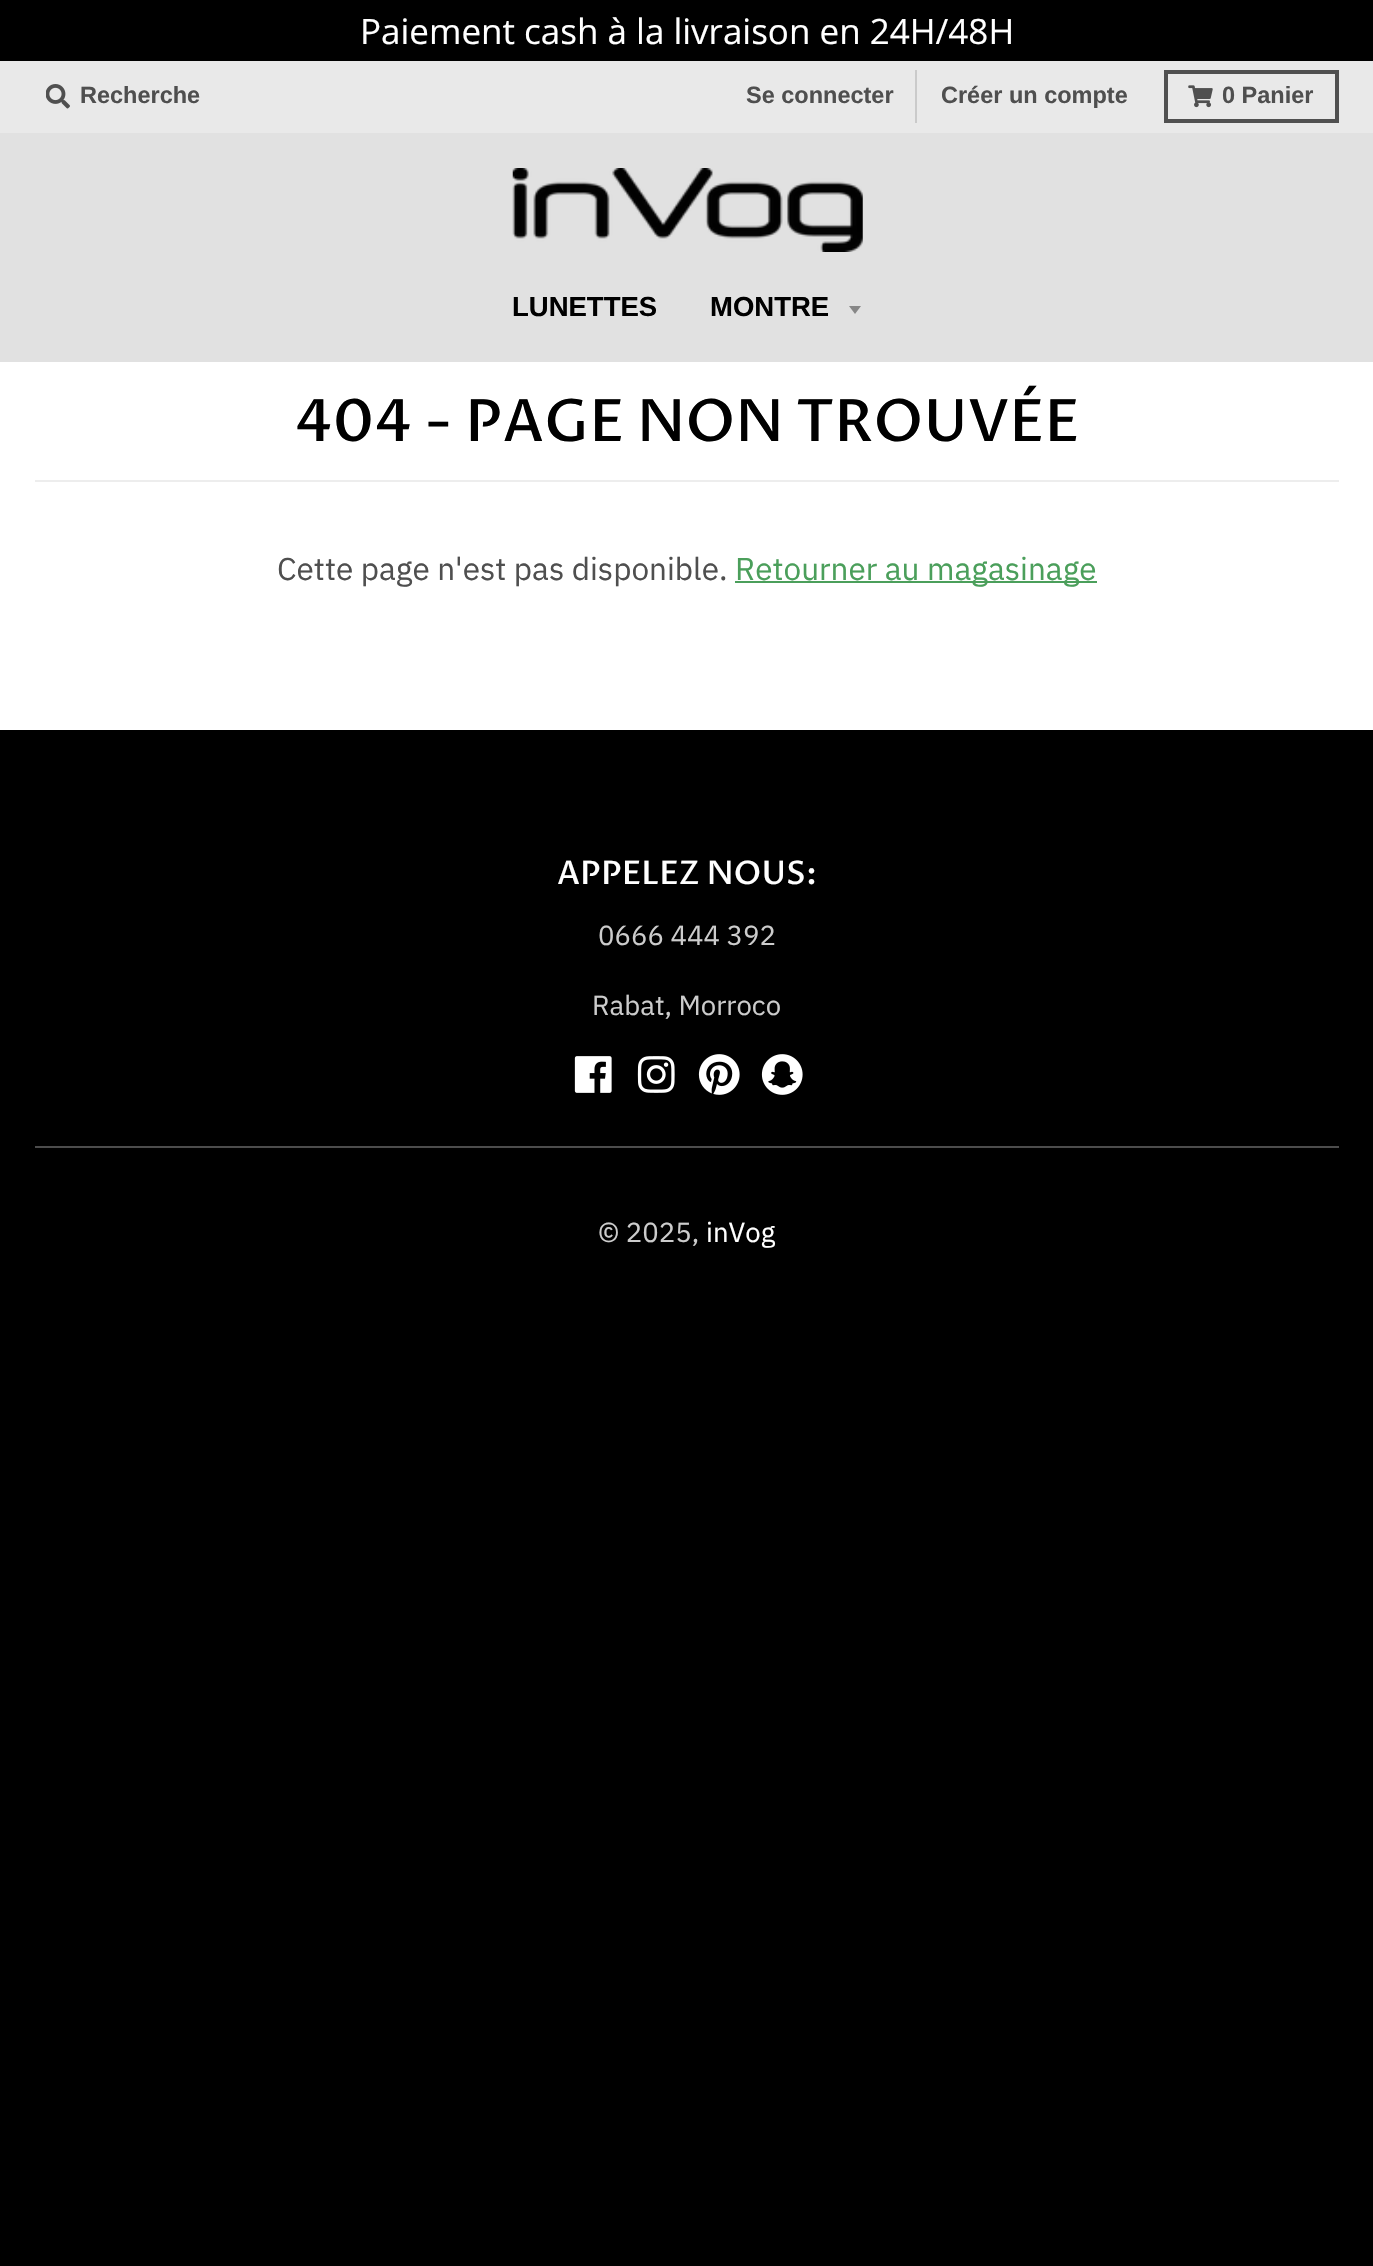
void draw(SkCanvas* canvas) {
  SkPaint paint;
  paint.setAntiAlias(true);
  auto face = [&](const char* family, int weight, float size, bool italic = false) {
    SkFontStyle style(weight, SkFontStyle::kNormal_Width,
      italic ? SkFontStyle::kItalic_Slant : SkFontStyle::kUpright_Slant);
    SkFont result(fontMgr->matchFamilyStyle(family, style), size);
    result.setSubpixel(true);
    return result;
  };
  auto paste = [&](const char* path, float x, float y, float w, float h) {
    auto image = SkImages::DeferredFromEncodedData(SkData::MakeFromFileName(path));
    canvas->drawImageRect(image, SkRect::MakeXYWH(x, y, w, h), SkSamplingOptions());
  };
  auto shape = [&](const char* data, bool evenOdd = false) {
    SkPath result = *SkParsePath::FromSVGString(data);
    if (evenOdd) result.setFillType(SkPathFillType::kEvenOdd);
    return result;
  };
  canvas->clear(0xff000000);
  paint.setColor(0xffffffff);
  canvas->drawRect(SkRect::MakeXYWH(0, 362, 1373, 368), paint);
  paint.setColor(0xffe9e9e9);
  canvas->drawRect(SkRect::MakeXYWH(0, 61, 1373, 72), paint);
  paste("img/1.png", 46, 84, 24, 25);
  paint.setColor(0xffcacaca);
  canvas->drawRect(SkRect::MakeXYWH(915, 70, 2, 53), paint);
  paint.setStroke(true);
  paint.setStrokeWidth(4);
  paint.setColor(0xff505050);
  canvas->drawRect(SkRect::MakeXYWH(1166, 72, 171, 49), paint);
  paste("img/2.png", 1188, 85, 25, 23);
  paint.setStroke(false);
  paint.setColor(0xffe1e1e1);
  canvas->drawRect(SkRect::MakeXYWH(0, 133, 1373, 229), paint);
  paste("img/3.png", 512, 168, 351, 84);
  paint.setColor(0xff878787);
  canvas->drawPath(shape("M849 306L855 314L861 306Z"), paint);
  paint.setColor(0xffededed);
  canvas->drawRect(SkRect::MakeXYWH(35, 480, 1304, 2), paint);
  paint.setColor(0xff4b9f5b);
  canvas->drawRect(SkRect::MakeXYWH(735, 581, 362, 2), paint);
  paste("img/4.png", 574, 1056, 38, 37);
  paste("img/5.png", 637, 1056, 38, 37);
  paste("img/6.png", 698, 1054, 42, 41);
  paste("img/7.png", 761, 1054, 42, 41);
  paint.setColor(0xff4c4c4c);
  canvas->drawRect(SkRect::MakeXYWH(35, 1146, 1304, 2), paint);
  auto f0 = face("Open Sans", 400, 35);
  paint.setColor(0xffffffff);
  canvas->drawString("Paiement cash à la livraison en 24H/48H", 360, 44, f0, paint);
  auto f1 = face("Arimo", 700, 23.5f);
  paint.setColor(0xff4f4f4f);
  {
    const struct { const char* s; float x, y; } items[] = {
      {"Recherche", 80, 103},
      {"Se connecter", 746, 103},
      {"Créer un compte", 941, 103},
      {"0 Panier", 1222, 103},
    };
    for (auto [s, x, y] : items) {
      canvas->drawString(s, x, y, f1, paint);
    }
  }
  auto f2 = face("Arimo", 700, 27.5f);
  paint.setColor(0xff000000);
  canvas->drawString("LUNETTES", 512, 316, f2, paint);
  canvas->drawString("MONTRE", 710, 316, f2, paint);
  auto f3 = face("Proza Libre", 500, 58.5f);
  canvas->drawString("404 - PAGE NON TROUVÉE", 295, 441, f3, paint);
  auto f4 = face("IBM Plex Sans", 400, 31.5f);
  paint.setColor(0xff4f4f4f);
  canvas->drawString("Cette page n'est pas disponible.", 277, 580, f4, paint);
  paint.setColor(0xff4b9f5b);
  canvas->drawString("Retourner au magasinage", 735, 580, f4, paint);
  auto f5 = face("Proza Libre", 500, 32.5f);
  paint.setColor(0xffffffff);
  canvas->drawString("APPELEZ NOUS:", 557, 884, f5, paint);
  auto f6 = face("IBM Plex Sans", 400, 27.5f);
  paint.setColor(0xffcccccc);
  {
    const struct { const char* s; float x, y; } items[] = {
      {"0666 444 392", 598, 945},
      {"Rabat, Morroco", 592, 1015},
      {"© 2025,", 598, 1242},
    };
    for (auto [s, x, y] : items) {
      canvas->drawString(s, x, y, f6, paint);
    }
  }
  paint.setColor(0xffffffff);
  canvas->drawString("inVog", 706, 1242, f6, paint);
}
